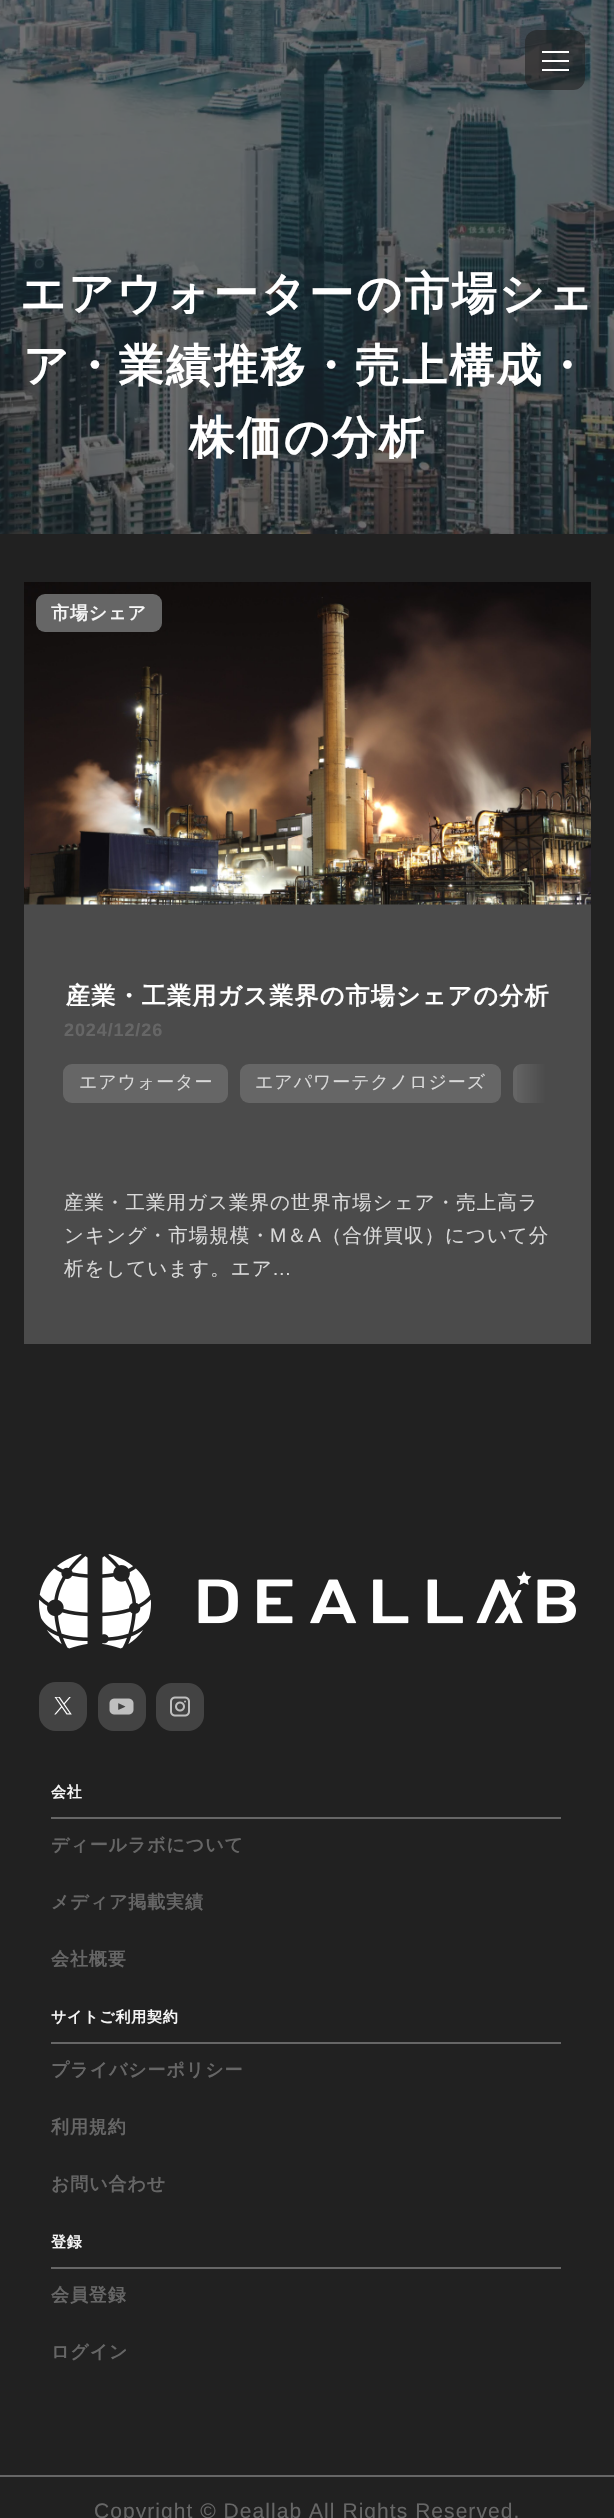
void draw(SkCanvas* canvas) {
  SkPaint paint;
  paint.setAntiAlias(true);
  auto face = [&](const char* family, int weight, float size, bool italic = false) {
    SkFontStyle style(weight, SkFontStyle::kNormal_Width,
      italic ? SkFontStyle::kItalic_Slant : SkFontStyle::kUpright_Slant);
    SkFont result(fontMgr->matchFamilyStyle(family, style), size);
    result.setSubpixel(true);
    return result;
  };
  auto writeSpaced = [&](const char* s, float x, float y, const SkFont& font, const SkPaint& ink, float letter, float word) {
    std::vector<SkGlyphID> glyphs(font.countText(s, strlen(s), SkTextEncoding::kUTF8));
    std::vector<float> xs(glyphs.size());
    font.textToGlyphs(s, strlen(s), SkTextEncoding::kUTF8, glyphs);
    font.getXPos(glyphs, xs, x);
    float extra = 0;
    for (size_t i = 0; i < glyphs.size(); i++) {
      xs[i] += extra;
      extra += letter + word * (glyphs[i] == font.unicharToGlyph(' '));
    }
    canvas->drawTextBlob(SkTextBlob::MakeFromPosHGlyphs(glyphs, xs, y, font), 0, 0, ink);
  };
  auto paste = [&](const char* path, float x, float y, float w, float h) {
    auto image = SkImages::DeferredFromEncodedData(SkData::MakeFromFileName(path));
    canvas->drawImageRect(image, SkRect::MakeXYWH(x, y, w, h), SkSamplingOptions());
  };
  auto shape = [&](const char* data, bool evenOdd = false) {
    SkPath result = *SkParsePath::FromSVGString(data);
    if (evenOdd) result.setFillType(SkPathFillType::kEvenOdd);
    return result;
  };
  canvas->clear(0xff212121);
  paste("img/1.png", 0, 0, 614, 534);
  paint.setColor(0x99212121);
  canvas->drawRoundRect(SkRect::MakeXYWH(525, 30, 60, 60), 12, 12, paint);
  {
    const struct { float x, y, w, h; SkColor color; } items[] = {
      {542, 51, 27, 2, 0xffffffff},
      {542, 60, 27, 2, 0xffffffff},
      {542, 69, 27, 2, 0xffffffff},
      {24, 904, 567, 440, 0xff4b4b4b},
    };
    for (auto [x, y, w, h, color] : items) {
      paint.setColor(color);
      canvas->drawRect(SkRect::MakeXYWH(x, y, w, h), paint);
    }
  }
  paste("img/2.png", 24, 582, 567, 323);
  paint.setColor(0xff666666);
  canvas->drawRoundRect(SkRect::MakeXYWH(36, 594, 126, 38), 9, 9, paint);
  canvas->drawRoundRect(SkRect::MakeXYWH(63, 1064, 165, 39), 9, 9, paint);
  canvas->drawRoundRect(SkRect::MakeXYWH(240, 1064, 261, 39), 9, 9, paint);
  canvas->drawPath(shape("M522 1064H552V1103H522C517 1103 513 1099 513 1094V1073C513 1068 517 1064 522 1064Z"), paint);
  {
    const SkColor colors[] = {0xff4b4b4b, 0x004b4b4b};
    const float stops[] = {0.14f, 0.91f};
    const SkPoint ends[] = {{551, 1082}, {509, 1082}};
    paint.setShader(SkGradientShader::MakeLinear(ends, colors, stops, 2, SkTileMode::kClamp));
    paint.setAlpha(255);
  }
  canvas->drawRect(SkRect::MakeXYWH(517, 1064, 35, 39), paint);
  paste("img/3.png", 39, 1554, 537, 95);
  paint.setShader(nullptr);
  paint.setColor(0xff434343);
  canvas->drawRoundRect(SkRect::MakeXYWH(39, 1682, 48, 49), 17, 17, paint);
  paste("img/4.png", 54, 1697, 18, 18);
  paste("img/5.png", 98, 1683, 48, 48);
  paste("img/6.png", 156, 1683, 48, 48);
  {
    const struct { float x, y, w, h; SkColor color; } items[] = {
      {51, 1817, 510, 2, 0xff666666},
      {51, 2042, 510, 2, 0xff666666},
      {51, 2267, 510, 2, 0xff666666},
      {0, 2475, 614, 2, 0xff666666},
    };
    for (auto [x, y, w, h, color] : items) {
      paint.setColor(color);
      canvas->drawRect(SkRect::MakeXYWH(x, y, w, h), paint);
    }
  }
  auto f0 = face("WenQuanYi Zen Hei", 700, 45);
  paint.setColor(0xffffffff);
  {
    const struct { const char* s; float x, y; } items[] = {
      {"エアウォーターの市場シェ", 20, 309},
      {"ア・業績推移・売上構成・", 23, 381},
      {"株価の分析", 189, 453},
    };
    for (auto [s, x, y] : items) {
      writeSpaced(s, x, y, f0, paint, 2.25f, 0);
    }
  }
  auto f1 = face("WenQuanYi Zen Hei", 700, 18);
  paint.setColor(0xfff5f5f5);
  writeSpaced("市場シェア", 51, 619, f1, paint, 0.9f, 0);
  auto f2 = face("WenQuanYi Zen Hei", 700, 24);
  paint.setColor(0xffffffff);
  writeSpaced("産業・工業用ガス業界の市場シェアの分析", 66, 1004, f2, paint, 1.25f, 0);
  auto f3 = face("Liberation Sans", 700, 18);
  paint.setColor(0xff666666);
  writeSpaced("2024/12/26", 64, 1036, f3, paint, 0.9f, 0);
  auto f4 = face("WenQuanYi Zen Hei", 500, 18);
  paint.setColor(0xffd9d9d9);
  writeSpaced("エアウォーター", 79, 1088, f4, paint, 0.9f, 0);
  writeSpaced("エアパワーテクノロジーズ", 255, 1088, f4, paint, 0.9f, 0);
  auto f5 = face("WenQuanYi Zen Hei", 500, 19.5f);
  writeSpaced("産業・工業用ガス業界の世界市場シェア・売上高ラ", 64, 1209, f5, paint, 1, 0);
  writeSpaced("ンキング・市場規模・", 64, 1242, f5, paint, 1, 0);
  auto f6 = face("Liberation Sans", 400, 19.5f);
  writeSpaced("M", 270, 1242, f6, paint, 1, 0);
  writeSpaced("＆", 287, 1242, f5, paint, 1, 0);
  writeSpaced("A", 308, 1242, f6, paint, 1, 0);
  writeSpaced("（合併買収）について分", 322, 1242, f5, paint, 1, 0);
  writeSpaced("析をしています。エア", 64, 1275, f5, paint, 1, 0);
  writeSpaced("…", 272, 1275, f6, paint, 1, 0);
  auto f7 = face("WenQuanYi Zen Hei", 700, 15);
  paint.setColor(0xfff5f5f5);
  writeSpaced("会社", 51, 1797, f7, paint, 0.75f, 0);
  paint.setColor(0xff666666);
  {
    const struct { const char* s; float x, y; } items[] = {
      {"ディールラボについて", 51, 1851},
      {"メディア掲載実績", 51, 1908},
      {"会社概要", 51, 1965},
    };
    for (auto [s, x, y] : items) {
      writeSpaced(s, x, y, f1, paint, 0.9f, 0);
    }
  }
  paint.setColor(0xfff5f5f5);
  writeSpaced("サイトご利用契約", 51, 2022, f7, paint, 0.75f, 0);
  paint.setColor(0xff666666);
  {
    const struct { const char* s; float x, y; } items[] = {
      {"プライバシーポリシー", 51, 2076},
      {"利用規約", 51, 2133},
      {"お問い合わせ", 51, 2190},
    };
    for (auto [s, x, y] : items) {
      writeSpaced(s, x, y, f1, paint, 0.9f, 0);
    }
  }
  paint.setColor(0xfff5f5f5);
  writeSpaced("登録", 51, 2247, f7, paint, 0.75f, 0);
  paint.setColor(0xff666666);
  writeSpaced("会員登録", 51, 2301, f1, paint, 0.9f, 0);
  writeSpaced("ログイン", 51, 2358, f1, paint, 0.9f, 0);
  auto f8 = face("Liberation Sans", 400, 21);
  writeSpaced("Copyright © Deallab All Rights Reserved.", 94, 2518, f8, paint, 1.05f, 0);
}
